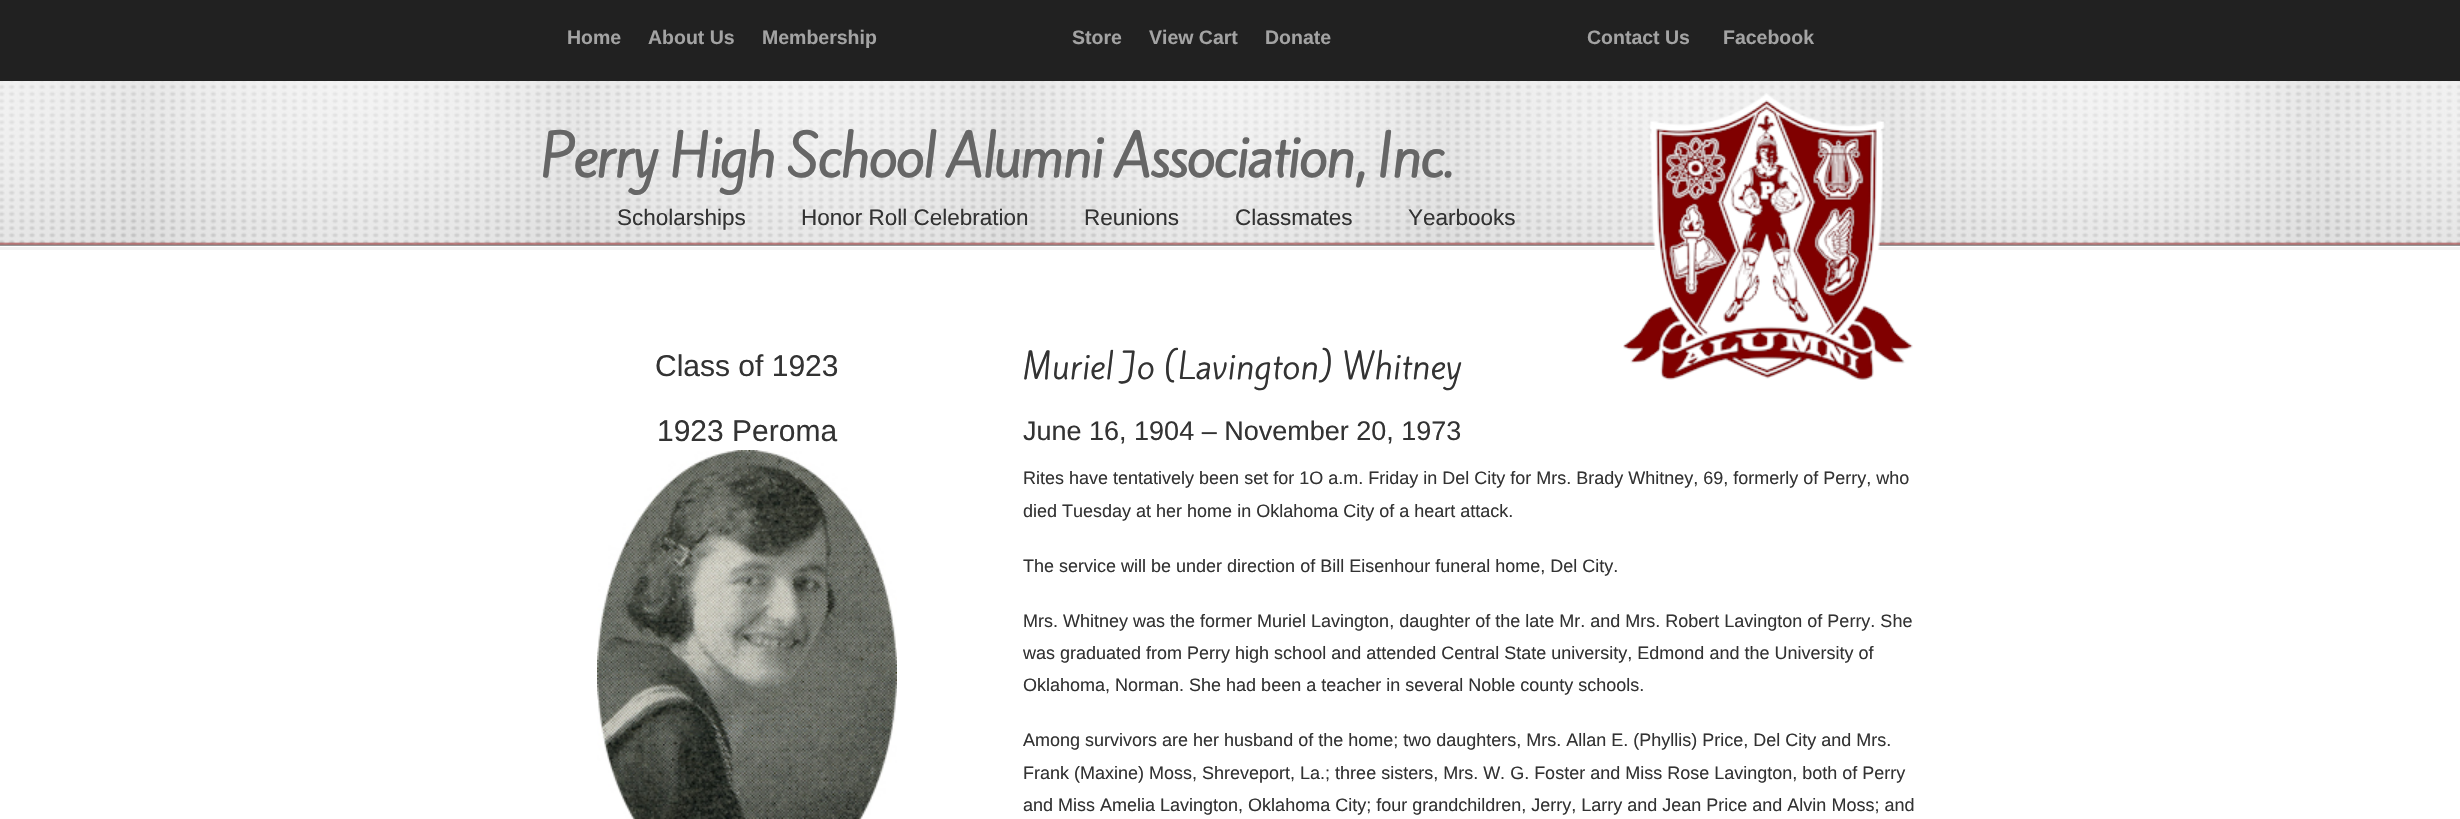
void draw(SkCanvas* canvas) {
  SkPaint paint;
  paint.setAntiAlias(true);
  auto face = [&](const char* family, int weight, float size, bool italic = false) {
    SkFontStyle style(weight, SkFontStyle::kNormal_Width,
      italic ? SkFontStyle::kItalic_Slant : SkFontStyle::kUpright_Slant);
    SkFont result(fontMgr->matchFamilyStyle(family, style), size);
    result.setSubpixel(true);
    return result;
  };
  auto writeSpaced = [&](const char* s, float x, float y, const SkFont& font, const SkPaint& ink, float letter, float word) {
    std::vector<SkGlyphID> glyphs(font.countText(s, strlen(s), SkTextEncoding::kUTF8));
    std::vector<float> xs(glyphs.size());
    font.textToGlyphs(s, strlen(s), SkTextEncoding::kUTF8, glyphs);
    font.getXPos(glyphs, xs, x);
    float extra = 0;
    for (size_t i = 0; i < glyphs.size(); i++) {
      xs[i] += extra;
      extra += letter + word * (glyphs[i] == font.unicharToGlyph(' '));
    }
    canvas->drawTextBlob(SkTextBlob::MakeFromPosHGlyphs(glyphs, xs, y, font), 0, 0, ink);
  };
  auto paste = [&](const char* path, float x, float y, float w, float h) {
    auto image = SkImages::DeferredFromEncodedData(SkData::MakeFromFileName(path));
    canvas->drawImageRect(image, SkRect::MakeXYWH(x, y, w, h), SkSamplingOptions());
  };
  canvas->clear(0xff212121);
  paste("img/1.png", 0, 81, 2460, 165);
  paste("img/3.png", 0, 243, 2460, 3);
  paint.setColor(0xffffffff);
  canvas->drawRect(SkRect::MakeXYWH(0, 246, 2460, 573), paint);
  paint.setColor(0xfff2f2f2);
  canvas->drawRect(SkRect::MakeXYWH(0, 247, 2460, 3), paint);
  paste("img/2.png", 1623, 93, 290, 287);
  paste("img/4.png", 597, 450, 300, 369);
  auto f0 = face("Liberation Sans", 700, 19.5f);
  paint.setColor(0xffa3a3a3);
  {
    const struct { const char* s; float x, y; } items[] = {
      {"Home", 567, 44},
      {"About Us", 648, 44},
      {"Membership", 762, 44},
      {"Store", 1072, 44},
      {"View Cart", 1149, 44},
      {"Donate", 1265, 44},
      {"Contact Us", 1587, 44},
      {"Facebook", 1723, 44},
    };
    for (auto [s, x, y] : items) {
      canvas->drawString(s, x, y, f0, paint);
    }
  }
  auto f1 = face("Kite One", 700, 52.5f);
  paint.setColor(0xff666666);
  writeSpaced("Perry High School Alumni Association, Inc.", 540, 177, f1, paint, -1.5f, 0);
  auto f2 = face("Liberation Sans", 400, 22.5f);
  paint.setColor(0xff333333);
  {
    const struct { const char* s; float x, y; } items[] = {
      {"Scholarships", 617, 225},
      {"Honor Roll Celebration", 801, 225},
      {"Reunions", 1084, 225},
      {"Classmates", 1235, 225},
      {"Yearbooks", 1408, 225},
    };
    for (auto [s, x, y] : items) {
      canvas->drawString(s, x, y, f2, paint);
    }
  }
  auto f3 = face("Liberation Sans", 400, 30);
  canvas->drawString("Class of 1923", 655, 376, f3, paint);
  canvas->drawString("1923 Peroma", 657, 441, f3, paint);
  auto f4 = face("Kite One", 400, 33);
  canvas->drawString("Muriel Jo (Lavington) Whitney", 1023, 379, f4, paint);
  auto f5 = face("Liberation Sans", 400, 27);
  canvas->drawString("June 16, 1904 – November 20, 1973", 1023, 440, f5, paint);
  auto f6 = face("Liberation Sans", 400, 18);
  {
    const struct { const char* s; float x, y; } items[] = {
      {"Rites have tentatively been set for 1O a.m. Friday in Del City for Mrs. Brady Whitney, 69, formerly of Perry, who", 1023, 484},
      {"died Tuesday at her home in Oklahoma City of a heart attack.", 1023, 517},
      {"The service will be under direction of Bill Eisenhour funeral home, Del City.", 1023, 572},
      {"Mrs. Whitney was the former Muriel Lavington, daughter of the late Mr. and Mrs. Robert Lavington of Perry. She", 1023, 627},
      {"was graduated from Perry high school and attended Central State university, Edmond and the University of", 1023, 659},
      {"Oklahoma, Norman. She had been a teacher in several Noble county schools.", 1023, 691},
      {"Among survivors are her husband of the home; two daughters, Mrs. Allan E. (Phyllis) Price, Del City and Mrs.", 1023, 746},
      {"Frank (Maxine) Moss, Shreveport, La.; three sisters, Mrs. W. G. Foster and Miss Rose Lavington, both of Perry", 1023, 779},
      {"and Miss Amelia Lavington, Oklahoma City; four grandchildren, Jerry, Larry and Jean Price and Alvin Moss; and", 1023, 811},
    };
    for (auto [s, x, y] : items) {
      canvas->drawString(s, x, y, f6, paint);
    }
  }
}
